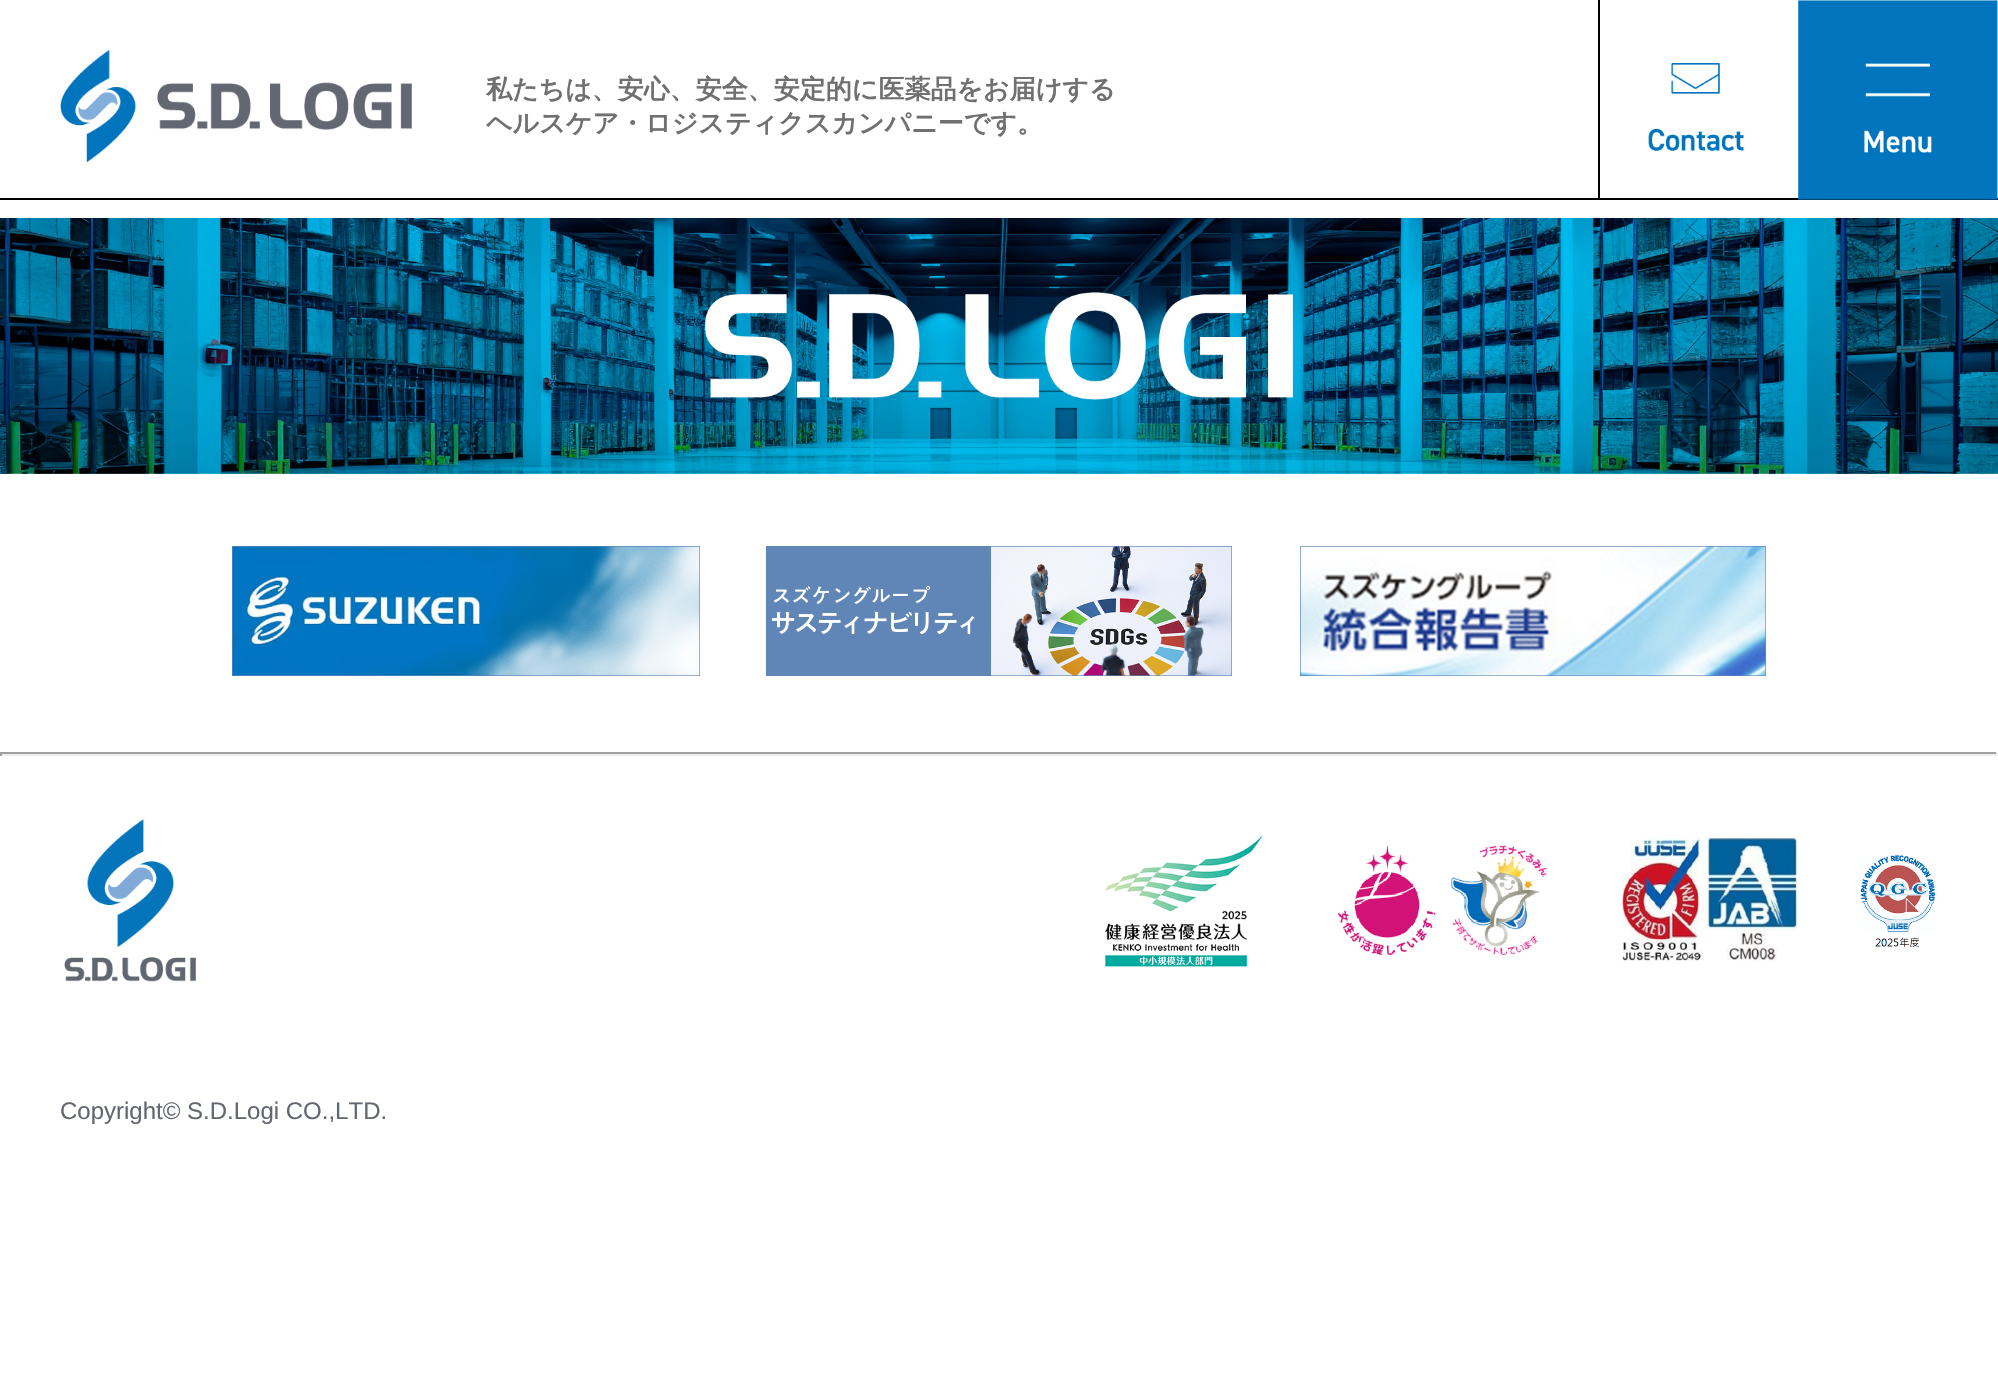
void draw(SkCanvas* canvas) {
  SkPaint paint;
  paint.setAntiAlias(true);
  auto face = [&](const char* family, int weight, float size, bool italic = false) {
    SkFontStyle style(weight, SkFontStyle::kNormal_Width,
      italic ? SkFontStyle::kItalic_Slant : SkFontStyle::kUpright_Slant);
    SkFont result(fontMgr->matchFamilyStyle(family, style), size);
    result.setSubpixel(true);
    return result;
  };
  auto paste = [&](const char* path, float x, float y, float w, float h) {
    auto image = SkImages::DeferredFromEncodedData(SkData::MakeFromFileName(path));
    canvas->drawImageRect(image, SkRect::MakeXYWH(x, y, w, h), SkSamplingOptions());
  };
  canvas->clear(0xffffffff);
  paint.setColor(0xff000000);
  canvas->drawRect(SkRect::MakeXYWH(0, 198, 1998, 2), paint);
  paste("img/1.png", 60, 50, 352, 112);
  paste("img/2.png", 1648, 63, 96, 88);
  canvas->drawRect(SkRect::MakeXYWH(1598, 0, 2, 200), paint);
  paste("img/3.png", 1798, 0, 200, 200);
  paste("img/4.png", 0, 218, 1998, 256);
  paste("img/5.png", 232, 546, 468, 130);
  paste("img/6.png", 766, 546, 466, 130);
  paste("img/7.png", 1300, 546, 466, 130);
  {
    const struct { float x, y, w, h; SkColor color; } items[] = {
      {0, 752, 1998, 2, 0xff9f9f9f},
      {1996, 752, 2, 4, 0xffeeeeee},
      {0, 754, 1998, 2, 0xffeeeeee},
      {0, 752, 2, 4, 0xff9f9f9f},
    };
    for (auto [x, y, w, h, color] : items) {
      paint.setColor(color);
      canvas->drawRect(SkRect::MakeXYWH(x, y, w, h), paint);
    }
  }
  paste("img/8.png", 64, 819, 132, 163);
  paste("img/9.png", 1105, 835, 158, 132);
  paste("img/10.png", 1338, 845, 209, 110);
  paste("img/11.png", 1622, 837, 175, 125);
  paste("img/12.png", 1860, 855, 78, 92);
  auto f0 = face("WenQuanYi Zen Hei", 700, 26);
  paint.setColor(0xff717070);
  canvas->drawString("私たちは、安心、安全、安定的に医薬品をお届けする", 486, 98, f0, paint);
  canvas->drawString("ヘルスケア・ロジスティクスカンパニーです。", 486, 132, f0, paint);
  auto f1 = face("Liberation Sans", 400, 24);
  paint.setColor(0xff636770);
  canvas->drawString("Copyright© S.D.Logi CO.,LTD.", 60, 1119, f1, paint);
}
